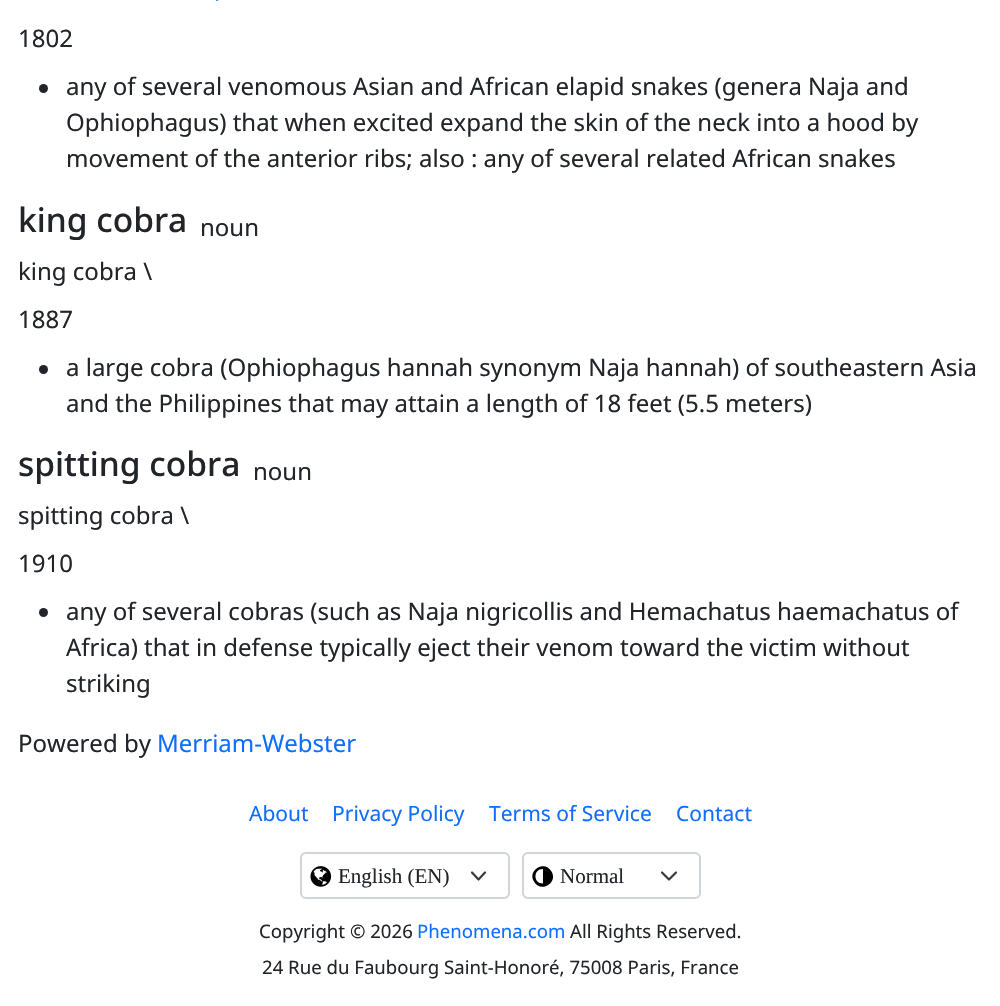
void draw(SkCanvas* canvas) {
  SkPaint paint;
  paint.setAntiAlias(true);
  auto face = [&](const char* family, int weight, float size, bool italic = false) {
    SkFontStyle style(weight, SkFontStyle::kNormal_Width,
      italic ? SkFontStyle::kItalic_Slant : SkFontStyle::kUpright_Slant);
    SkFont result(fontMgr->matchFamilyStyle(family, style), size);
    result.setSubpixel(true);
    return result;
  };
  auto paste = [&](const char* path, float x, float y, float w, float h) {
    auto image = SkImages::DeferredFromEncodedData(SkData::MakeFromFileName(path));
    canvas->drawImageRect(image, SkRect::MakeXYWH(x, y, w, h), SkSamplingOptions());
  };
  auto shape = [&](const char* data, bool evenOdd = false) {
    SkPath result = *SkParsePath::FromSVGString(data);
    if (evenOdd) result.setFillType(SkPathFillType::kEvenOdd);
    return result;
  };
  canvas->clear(0xffffffff);
  paste("img/1.png", 215, 0, 4, 1);
  paint.setColor(0xff212529);
  canvas->drawCircle(43.5f, 88.5f, 4.5f, paint);
  canvas->drawCircle(43.5f, 369.5f, 4.5f, paint);
  canvas->drawCircle(43.5f, 612.5f, 4.5f, paint);
  paint.setStroke(true);
  paint.setStrokeWidth(2.2f);
  paint.setStrokeCap(SkPaint::kRound_Cap);
  paint.setStrokeJoin(SkPaint::kRound_Join);
  paint.setColor(0xff343a40);
  canvas->drawPath(shape("M472 872.5L478.5 879.5L485 872.5"), paint);
  paint.setStrokeWidth(2);
  paint.setStrokeCap(SkPaint::kButt_Cap);
  paint.setStrokeJoin(SkPaint::kMiter_Join);
  paint.setColor(0xffced4da);
  canvas->drawRoundRect(SkRect::MakeXYWH(301, 853, 208, 45), 5, 5, paint);
  paste("img/2.png", 310, 866, 22, 21);
  paint.setStrokeWidth(2.2f);
  paint.setStrokeCap(SkPaint::kRound_Cap);
  paint.setStrokeJoin(SkPaint::kRound_Join);
  paint.setColor(0xff343a40);
  canvas->drawPath(shape("M662 872.5L669 879.5L676 872.5"), paint);
  paint.setStrokeWidth(2);
  paint.setStrokeCap(SkPaint::kButt_Cap);
  paint.setStrokeJoin(SkPaint::kMiter_Join);
  paint.setColor(0xffced4da);
  canvas->drawRoundRect(SkRect::MakeXYWH(523, 853, 177, 45), 5, 5, paint);
  paint.setStroke(false);
  paint.setColor(0xff020202);
  canvas->drawPath(shape("M543 883.5V869C533 869 533 883.5 543 883.5ZM551.5 871.5C558.5 883 540.5 893.5 534 881.5C527 870 545 859.5 551.5 871.5Z"), paint);
  auto f0 = face("Noto Sans", 400, 24);
  paint.setColor(0xff212529);
  {
    const struct { const char* s; float x, y; } items[] = {
      {"1802", 18, 47},
      {"any of several venomous Asian and African elapid snakes (genera Naja and", 66, 95},
      {"Ophiophagus) that when excited expand the skin of the neck into a hood by", 66, 131},
      {"movement of the anterior ribs; also : any of several related African snakes", 66, 167},
    };
    for (auto [s, x, y] : items) {
      canvas->drawString(s, x, y, f0, paint);
    }
  }
  auto f1 = face("Noto Sans", 500, 33.5f);
  canvas->drawString("king cobra", 18, 232, f1, paint);
  {
    const struct { const char* s; float x, y; } items[] = {
      {"noun", 200, 236},
      {"king cobra \\", 18, 280},
      {"1887", 18, 328},
      {"a large cobra (Ophiophagus hannah synonym Naja hannah) of southeastern Asia", 66, 376},
      {"and the Philippines that may attain a length of 18 feet (5.5 meters)", 66, 412},
    };
    for (auto [s, x, y] : items) {
      canvas->drawString(s, x, y, f0, paint);
    }
  }
  canvas->drawString("spitting cobra", 18, 476, f1, paint);
  {
    const struct { const char* s; float x, y; } items[] = {
      {"noun", 253, 480},
      {"spitting cobra \\", 18, 524},
      {"1910", 18, 572},
      {"any of several cobras (such as Naja nigricollis and Hemachatus haemachatus of", 66, 620},
      {"Africa) that in defense typically eject their venom toward the victim without", 66, 656},
      {"striking", 66, 692},
      {"Powered by", 18, 752},
    };
    for (auto [s, x, y] : items) {
      canvas->drawString(s, x, y, f0, paint);
    }
  }
  paint.setColor(0xff0d6efd);
  canvas->drawString("Merriam-Webster", 157, 752, f0, paint);
  auto f2 = face("Noto Sans", 400, 21);
  {
    const struct { const char* s; float x, y; } items[] = {
      {"About", 249, 821},
      {"Privacy Policy", 332, 821},
      {"Terms of Service", 489, 821},
      {"Contact", 676, 821},
    };
    for (auto [s, x, y] : items) {
      canvas->drawString(s, x, y, f2, paint);
    }
  }
  auto f3 = face("Liberation Serif", 400, 21);
  paint.setColor(0xff212529);
  canvas->drawString("English (EN)", 338, 883, f3, paint);
  canvas->drawString("Normal", 560, 883, f3, paint);
  auto f4 = face("Noto Sans", 400, 18.6f);
  canvas->drawString("Copyright © 2026", 259, 938, f4, paint);
  paint.setColor(0xff0d6efd);
  canvas->drawString("Phenomena.com", 417, 938, f4, paint);
  paint.setColor(0xff212529);
  canvas->drawString("All Rights Reserved.", 570, 938, f4, paint);
  canvas->drawString("24 Rue du Faubourg Saint-Honoré, 75008 Paris, France", 262, 974, f4, paint);
}
